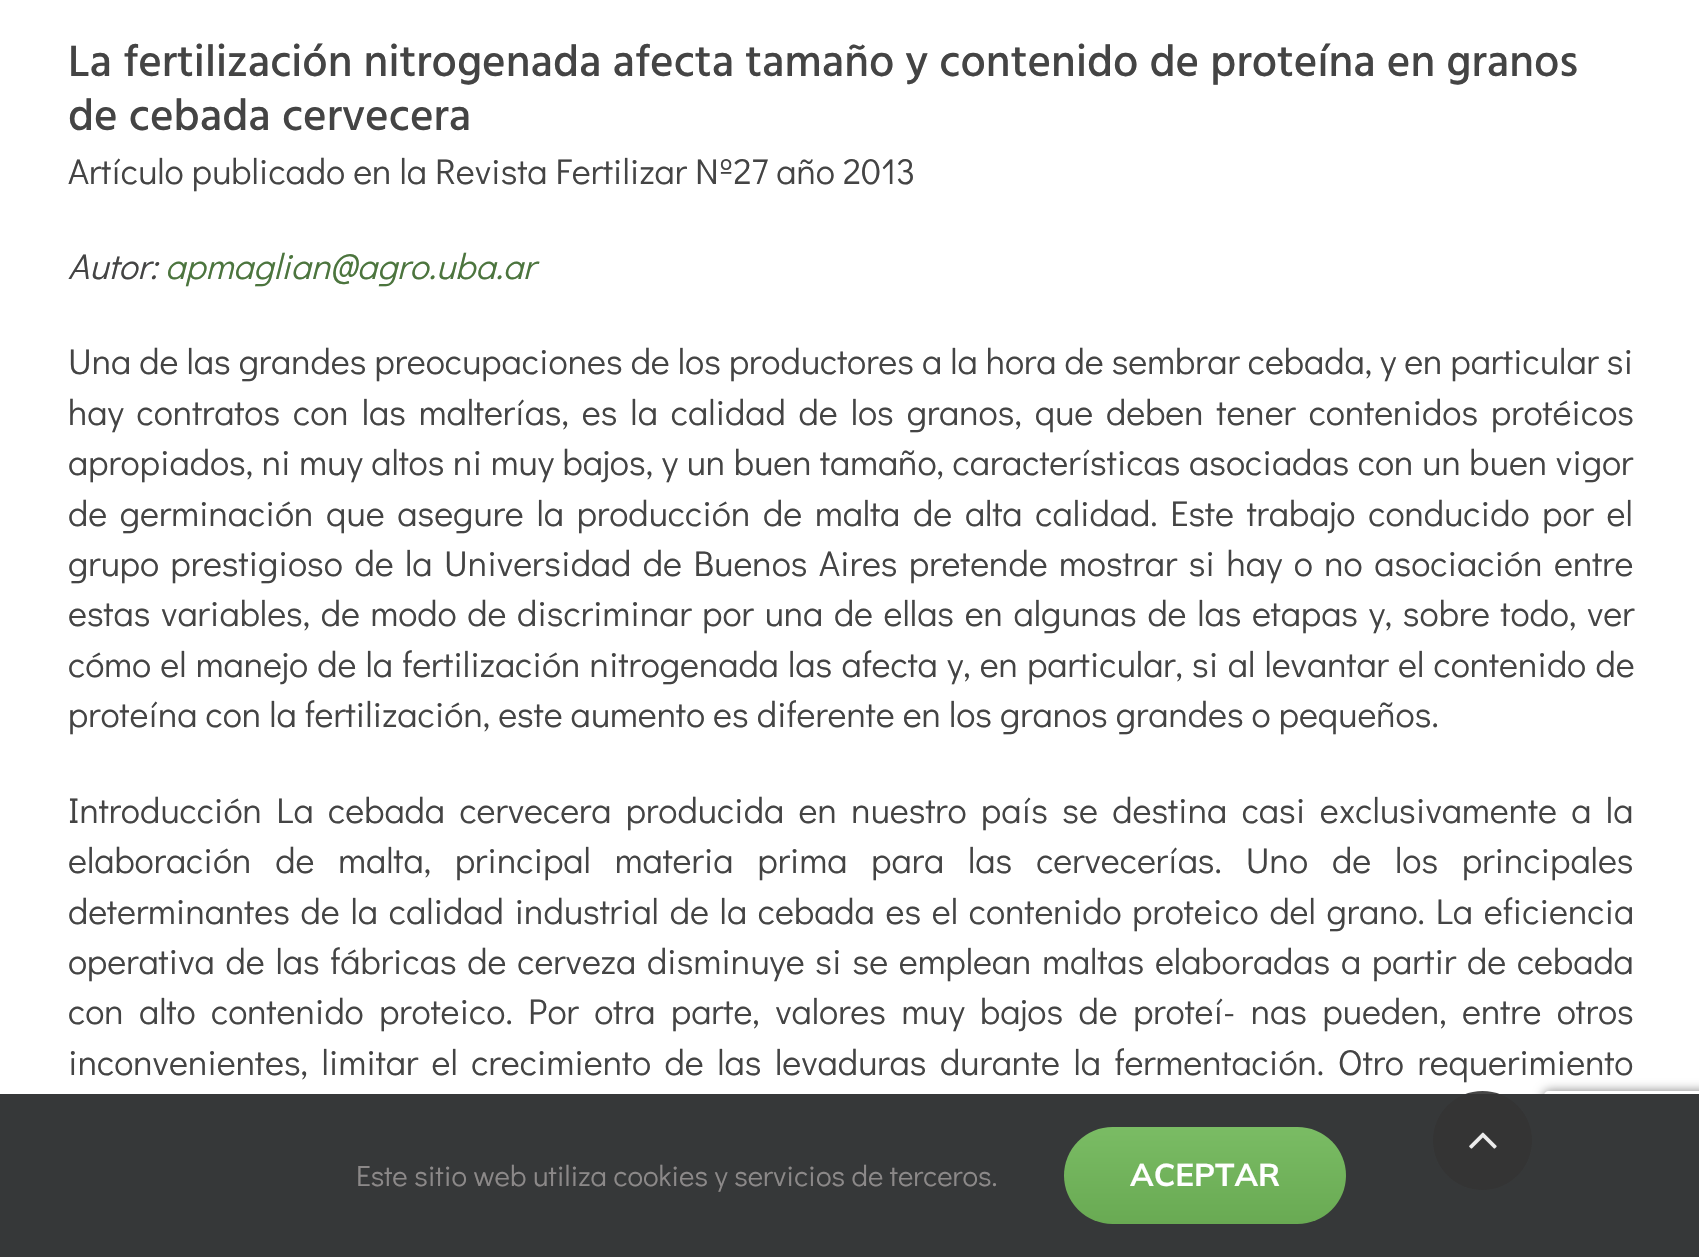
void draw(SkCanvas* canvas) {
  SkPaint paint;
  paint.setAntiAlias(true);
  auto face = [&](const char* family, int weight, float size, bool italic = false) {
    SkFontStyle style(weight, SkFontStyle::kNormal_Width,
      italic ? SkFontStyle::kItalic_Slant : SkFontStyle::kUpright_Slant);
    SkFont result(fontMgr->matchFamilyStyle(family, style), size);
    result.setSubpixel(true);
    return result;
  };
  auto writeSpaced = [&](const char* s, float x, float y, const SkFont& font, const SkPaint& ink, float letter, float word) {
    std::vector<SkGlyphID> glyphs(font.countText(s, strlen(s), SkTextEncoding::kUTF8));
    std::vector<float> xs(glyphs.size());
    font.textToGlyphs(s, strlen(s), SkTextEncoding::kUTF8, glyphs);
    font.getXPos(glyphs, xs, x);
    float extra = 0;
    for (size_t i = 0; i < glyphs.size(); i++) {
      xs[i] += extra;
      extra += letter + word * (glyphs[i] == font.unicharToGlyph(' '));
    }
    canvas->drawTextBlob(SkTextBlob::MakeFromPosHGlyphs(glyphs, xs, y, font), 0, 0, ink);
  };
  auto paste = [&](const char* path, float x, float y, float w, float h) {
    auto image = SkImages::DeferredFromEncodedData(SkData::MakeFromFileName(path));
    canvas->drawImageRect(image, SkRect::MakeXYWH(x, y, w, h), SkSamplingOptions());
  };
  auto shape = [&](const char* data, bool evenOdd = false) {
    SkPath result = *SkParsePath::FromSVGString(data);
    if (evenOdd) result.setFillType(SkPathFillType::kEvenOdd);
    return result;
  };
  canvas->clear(0xffffffff);
  canvas->save();
  canvas->clipPath(shape("M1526 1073H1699V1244H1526ZM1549 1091H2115C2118 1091 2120 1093 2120 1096V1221C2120 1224 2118 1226 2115 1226H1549C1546 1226 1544 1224 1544 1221V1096C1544 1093 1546 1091 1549 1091Z", true), true);
  paint.setColor(0xff808080);
  paint.setMaskFilter(SkMaskFilter::MakeBlur(kNormal_SkBlurStyle, 5.5f));
  canvas->drawRoundRect(SkRect::MakeXYWH(1544, 1091, 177, 135), 5, 5, paint);
  paint.setMaskFilter(nullptr);
  canvas->restore();
  paint.setColor(0xff363839);
  canvas->drawRect(SkRect::MakeXYWH(0, 1094, 1699, 163), paint);
  {
    const SkColor colors[] = {0xff7abc64, 0xff69aa53};
    const float stops[] = {0, 1};
    const SkPoint ends[] = {{1205, 1127}, {1205, 1224}};
    paint.setShader(SkGradientShader::MakeLinear(ends, colors, stops, 2, SkTileMode::kClamp));
    paint.setAlpha(255);
  }
  canvas->drawRoundRect(SkRect::MakeXYWH(1064, 1127, 282, 97), 48.5f, 48.5f, paint);
  paint.setShader(nullptr);
  paint.setColor(0xe6333333);
  canvas->drawCircle(1482.5f, 1140.5f, 49.5f, paint);
  paste("img/1.png", 1469, 1132, 28, 17);
  auto f0 = face("Hind", 500, 45);
  paint.setColor(0xff444444);
  canvas->drawString("La fertilización nitrogenada afecta tamaño y contenido de proteína en granos", 68, 76, f0, paint);
  canvas->drawString("de cebada cervecera", 68, 130, f0, paint);
  auto f1 = face("Didact Gothic", 400, 36);
  canvas->drawString("Artículo publicado en la Revista Fertilizar Nº27 año 2013", 68, 184, f1, paint);
  auto f2 = face("Didact Gothic", 400, 36, true);
  canvas->drawString("Autor:", 68, 279, f2, paint);
  paint.setColor(0xff4c753e);
  canvas->drawString("apmaglian@agro.uba.ar", 165, 279, f2, paint);
  paint.setColor(0xff444444);
  canvas->drawString("Una de las grandes preocupaciones de los productores a la hora de sembrar cebada, y en particular si", 68, 374, f1, paint);
  writeSpaced("hay contratos con las malterías, es la calidad de los granos, que deben tener contenidos protéicos", 68, 425, f1, paint, 0, 4.9f);
  writeSpaced("apropiados, ni muy altos ni muy bajos, y un buen tamaño, características asociadas con un buen vigor", 68, 475, f1, paint, 0, 0.6f);
  writeSpaced("de germinación que asegure la producción de malta de alta calidad. Este trabajo conducido por el", 68, 526, f1, paint, 0, 4.75f);
  writeSpaced("grupo prestigioso de la Universidad de Buenos Aires pretende mostrar si hay o no asociación entre", 68, 576, f1, paint, 0, 3.5f);
  writeSpaced("estas variables, de modo de discriminar por una de ellas en algunas de las etapas y, sobre todo, ver", 68, 626, f1, paint, 0, 2.6f);
  writeSpaced("cómo el manejo de la fertilización nitrogenada las afecta y, en particular, si al levantar el contenido de", 68, 677, f1, paint, 0, 1.2f);
  canvas->drawString("proteína con la fertilización, este aumento es diferente en los granos grandes o pequeños.", 68, 727, f1, paint);
  writeSpaced("Introducción La cebada cervecera producida en nuestro país se destina casi exclusivamente a la", 68, 823, f1, paint, 0, 6.4f);
  writeSpaced("elaboración de malta, principal materia prima para las cervecerías. Uno de los principales", 68, 873, f1, paint, 0, 15.9f);
  writeSpaced("determinantes de la calidad industrial de la cebada es el contenido proteico del grano. La eficiencia", 68, 924, f1, paint, 0, 2.75f);
  writeSpaced("operativa de las fábricas de cerveza disminuye si se emplean maltas elaboradas a partir de cebada", 68, 974, f1, paint, 0, 2.75f);
  writeSpaced("con alto contenido proteico. Por otra parte, valores muy bajos de proteí- nas pueden, entre otros", 68, 1024, f1, paint, 0, 7.4f);
  writeSpaced("inconvenientes, limitar el crecimiento de las levaduras durante la fermentación. Otro requerimiento", 68, 1075, f1, paint, 0, 5.5f);
  auto f3 = face("Didact Gothic", 400, 29.25f);
  paint.setColor(0xff8c8989);
  canvas->drawString("Este sitio web utiliza cookies y servicios de terceros.", 356, 1186, f3, paint);
  auto f4 = face("Mulish", 700, 31.5f);
  paint.setColor(0xffffffff);
  canvas->drawString("ACEPTAR", 1130, 1186, f4, paint);
}
